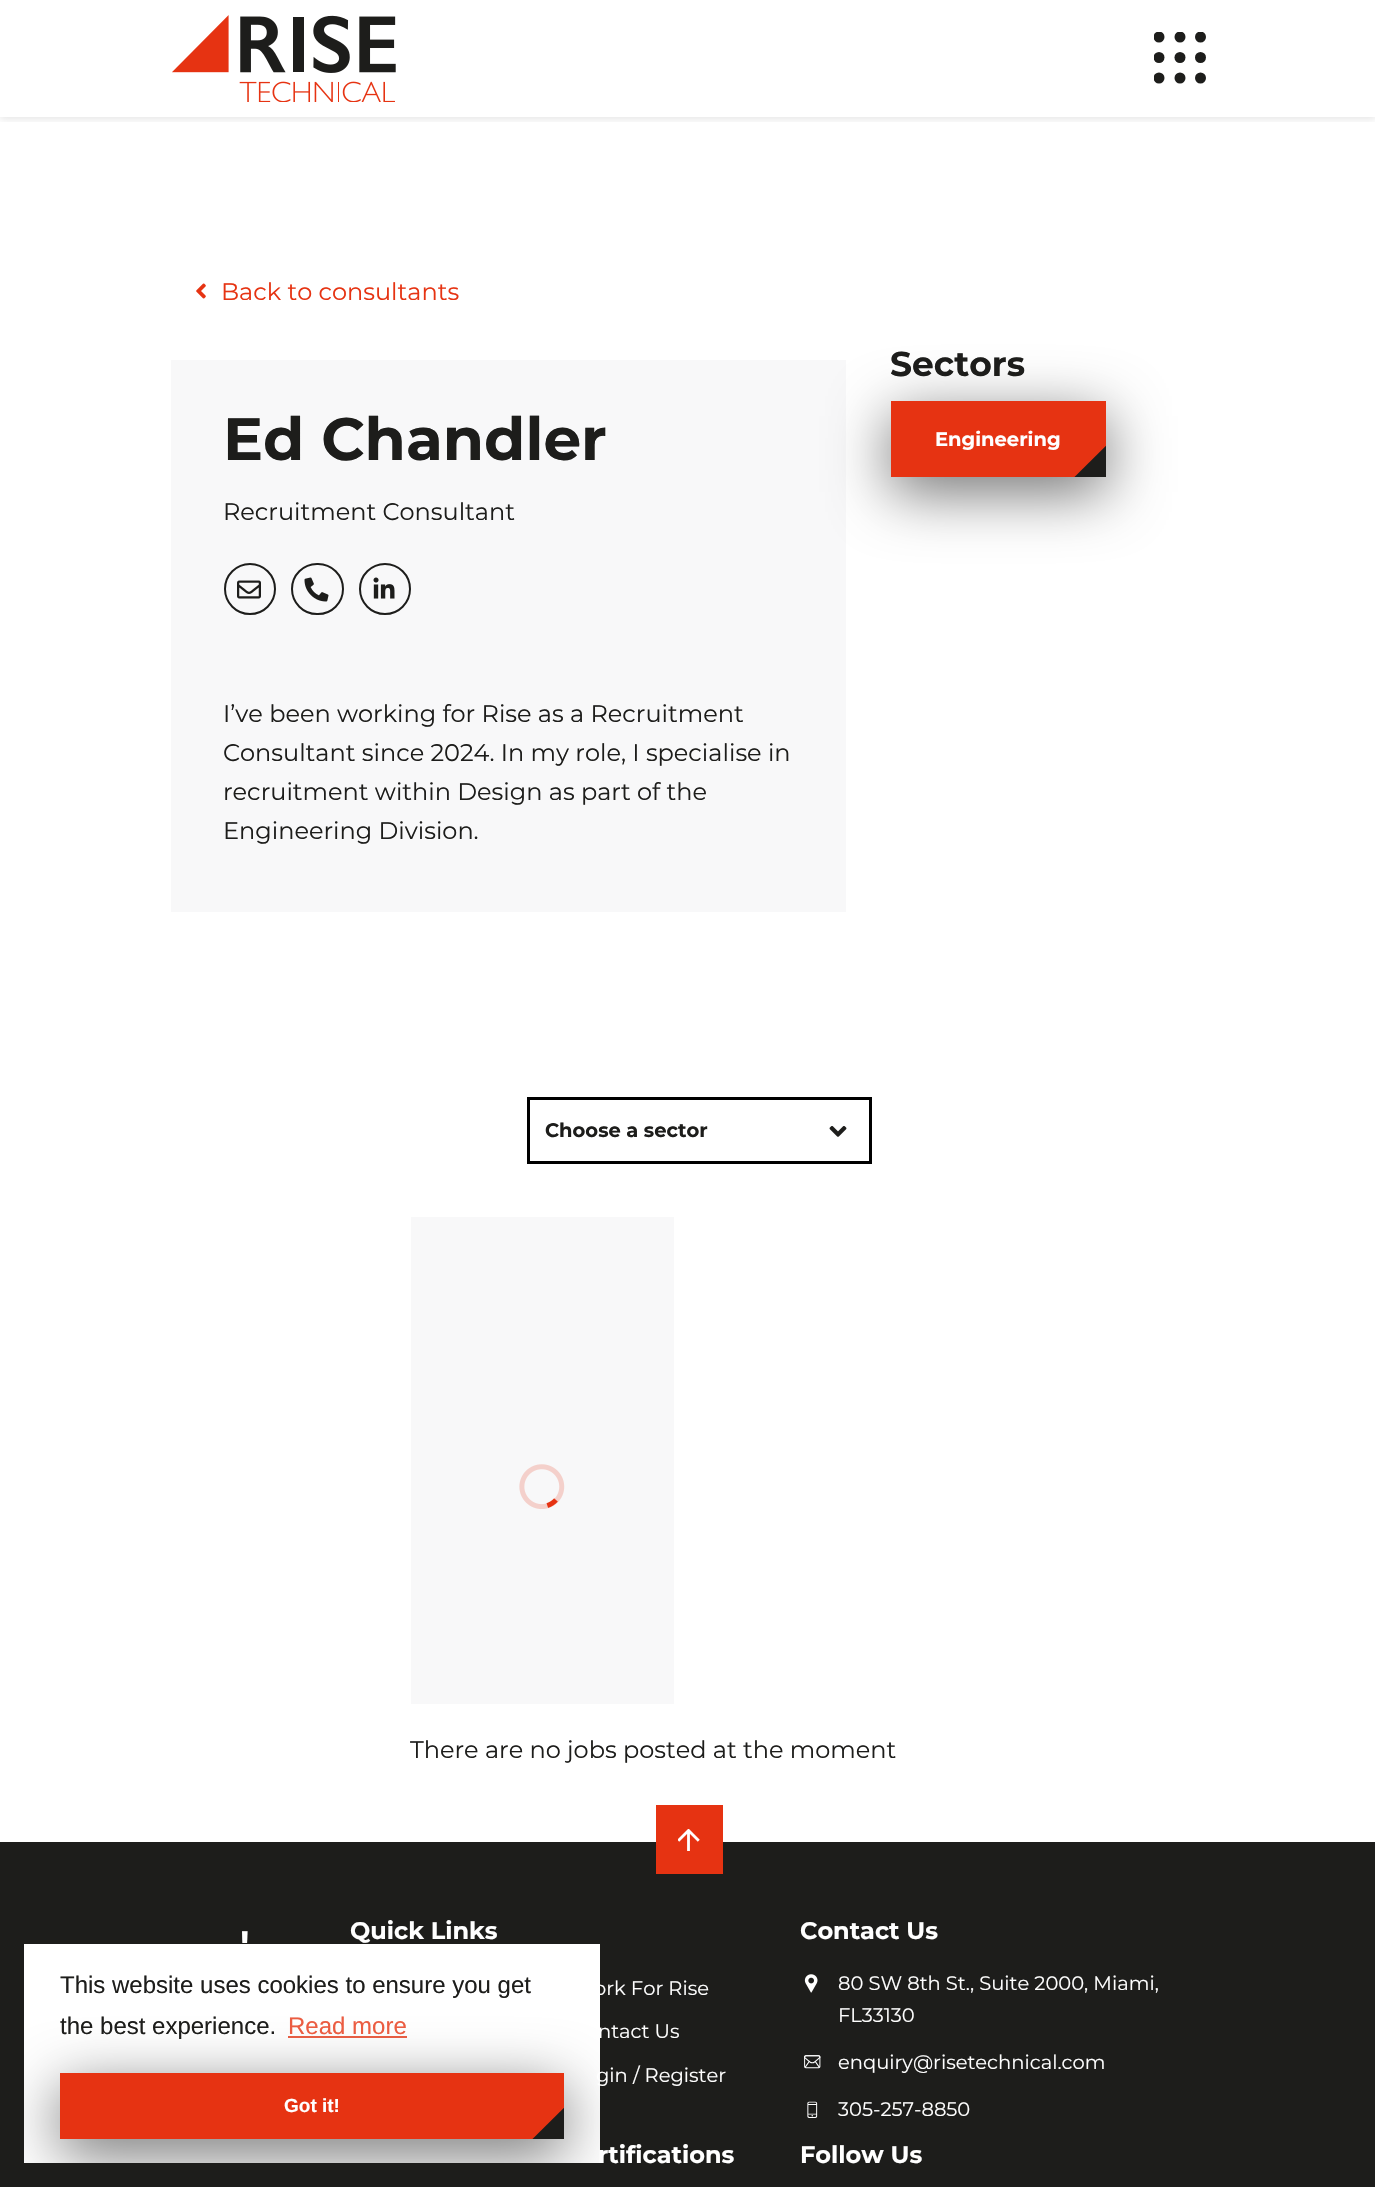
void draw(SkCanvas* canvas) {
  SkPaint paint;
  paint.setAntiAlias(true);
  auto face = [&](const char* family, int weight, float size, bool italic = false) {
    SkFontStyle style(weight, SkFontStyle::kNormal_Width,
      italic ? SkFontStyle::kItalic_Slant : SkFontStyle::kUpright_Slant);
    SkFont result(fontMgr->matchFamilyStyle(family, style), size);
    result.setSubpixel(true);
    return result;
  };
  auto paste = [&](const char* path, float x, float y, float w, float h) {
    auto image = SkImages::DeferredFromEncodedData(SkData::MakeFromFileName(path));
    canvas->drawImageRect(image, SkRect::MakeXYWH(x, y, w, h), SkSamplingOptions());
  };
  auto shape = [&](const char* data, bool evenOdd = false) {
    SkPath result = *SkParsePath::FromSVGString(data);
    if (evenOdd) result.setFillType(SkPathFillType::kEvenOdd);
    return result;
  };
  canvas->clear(0xffffffff);
  canvas->save();
  canvas->clipRect(SkRect::MakeXYWH(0, 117, 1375, 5));
  paint.setColor(0x1a000000);
  paint.setMaskFilter(SkMaskFilter::MakeBlur(kNormal_SkBlurStyle, 4));
  canvas->drawRect(SkRect::MakeXYWH(0, 2, 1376, 117), paint);
  paint.setMaskFilter(nullptr);
  canvas->restore();
  paste("img/1.png", 172, 15, 224, 87);
  canvas->save();
  canvas->clipRect(SkRect::MakeXYWH(1154, 32, 52, 54));
  paint.setColor(0xff1d1d1b);
  canvas->drawCircle(1159, 37, 5.5f, paint);
  canvas->drawCircle(1180, 37, 5.5f, paint);
  canvas->drawCircle(1200.5f, 37, 5.5f, paint);
  canvas->drawCircle(1159, 57.5f, 5.5f, paint);
  canvas->restore();
  canvas->drawCircle(1180, 57.5f, 5.5f, paint);
  canvas->drawCircle(1200.5f, 57.5f, 5.5f, paint);
  canvas->save();
  canvas->clipRect(SkRect::MakeXYWH(1154, 32, 52, 54));
  canvas->drawCircle(1159, 78, 5.5f, paint);
  canvas->restore();
  canvas->drawCircle(1180, 78, 5.5f, paint);
  canvas->drawCircle(1200.5f, 78, 5.5f, paint);
  paste("img/2.png", 196, 283, 10, 16);
  paint.setColor(0xfff8f8f9);
  canvas->drawRect(SkRect::MakeXYWH(171, 360, 675, 552), paint);
  paint.setStroke(true);
  paint.setStrokeWidth(2);
  paint.setColor(0xff1d1d1b);
  canvas->drawCircle(250, 589, 25, paint);
  paste("img/3.png", 237, 580, 24, 19);
  canvas->drawRoundRect(SkRect::MakeXYWH(292, 564, 51, 50), 25, 25, paint);
  paste("img/4.png", 304, 577, 25, 25);
  canvas->drawCircle(385, 589, 25, paint);
  paste("img/5.png", 373, 577, 22, 22);
  paint.setStroke(false);
  paint.setColor(0xff717171);
  paint.setMaskFilter(SkMaskFilter::MakeBlur(kNormal_SkBlurStyle, 30));
  canvas->drawRect(SkRect::MakeXYWH(891, 416, 215, 76), paint);
  paint.setMaskFilter(nullptr);
  paint.setColor(0xffe63312);
  canvas->drawRect(SkRect::MakeXYWH(891, 401, 215, 76), paint);
  canvas->save();
  canvas->clipRect(SkRect::MakeXYWH(891, 401, 215, 76));
  paint.setColor(0xff1d1d1b);
  canvas->drawPath(shape("M1010 541L1148 404L1307 563L1169 701Z"), paint);
  canvas->restore();
  paint.setStroke(true);
  paint.setStrokeWidth(3);
  paint.setColor(0xff000000);
  canvas->drawRect(SkRect::MakeXYWH(528.5f, 1098.5f, 342, 64), paint);
  paste("img/6.png", 829, 1126, 18, 11);
  paint.setStroke(false);
  paint.setColor(0xfff8f8f9);
  canvas->drawRect(SkRect::MakeXYWH(411, 1217, 263, 487), paint);
  paste("img/7.png", 519, 1464, 46, 45);
  paint.setColor(0xff1d1d1b);
  canvas->drawRect(SkRect::MakeXYWH(0, 1842, 1375, 345), paint);
  paint.setColor(0xffe63312);
  canvas->drawRect(SkRect::MakeXYWH(656, 1805, 67, 69), paint);
  paste("img/8.png", 678, 1829, 22, 22);
  paste("img/9.png", 804, 1974, 14, 19);
  paste("img/10.png", 804, 2055, 17, 14);
  paste("img/11.png", 807, 2101, 11, 17);
  paint.setColor(0xffffffff);
  canvas->drawRect(SkRect::MakeXYWH(24, 1944, 576, 219), paint);
  paint.setColor(0xffeb5c41);
  canvas->drawRect(SkRect::MakeXYWH(288, 2036, 119, 2), paint);
  canvas->save();
  canvas->clipRect(SkRect::MakeXYWH(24, 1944, 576, 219));
  paint.setColor(0xff717171);
  paint.setMaskFilter(SkMaskFilter::MakeBlur(kNormal_SkBlurStyle, 30));
  canvas->drawRect(SkRect::MakeXYWH(60, 2088, 504, 66), paint);
  paint.setMaskFilter(nullptr);
  canvas->restore();
  paint.setColor(0xffe63312);
  canvas->drawRect(SkRect::MakeXYWH(60, 2073, 504, 66), paint);
  canvas->save();
  canvas->clipRect(SkRect::MakeXYWH(60, 2073, 504, 66));
  paint.setColor(0xff1d1d1b);
  canvas->drawPath(shape("M468 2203L606 2066L765 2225L627 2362Z"), paint);
  canvas->restore();
  auto f0 = face("Montserrat", 400, 24);
  paint.setColor(0xffe63312);
  canvas->drawString("Back to consultants", 221, 300, f0, paint);
  auto f1 = face("Montserrat", 700, 59.75f);
  paint.setColor(0xff1d1d1b);
  canvas->drawString("Ed Chandler", 223, 460, f1, paint);
  {
    const struct { const char* s; float x, y; } items[] = {
      {"Recruitment Consultant", 223, 520},
      {"I’ve been working for Rise as a Recruitment", 223, 722},
      {"Consultant since 2024. In my role, I specialise in", 223, 761},
      {"recruitment within Design as part of the", 223, 800},
      {"Engineering Division.", 223, 839},
    };
    for (auto [s, x, y] : items) {
      canvas->drawString(s, x, y, f0, paint);
    }
  }
  auto f2 = face("Montserrat", 700, 34.5f);
  canvas->drawString("Sectors", 890, 376, f2, paint);
  auto f3 = face("Montserrat", 700, 19.5f);
  paint.setColor(0xffffffff);
  canvas->drawString("Engineering", 935, 446, f3, paint);
  paint.setColor(0xff1d1d1b);
  canvas->drawString("Choose a sector", 545, 1137, f3, paint);
  canvas->drawString("There are no jobs posted at the moment", 410, 1758, f0, paint);
  auto f4 = face("Montserrat", 700, 41);
  paint.setColor(0xffffffff);
  canvas->drawString("'", 240, 1960, f4, paint);
  auto f5 = face("Montserrat", 700, 24);
  canvas->drawString("Quick Links", 350, 1939, f5, paint);
  auto f6 = face("Montserrat", 400, 19.5f);
  {
    const struct { const char* s; float x, y; } items[] = {
      {"ork For Rise", 594, 1995},
      {"ntact Us", 598, 2038},
      {"gin / Register", 596, 2082},
    };
    for (auto [s, x, y] : items) {
      canvas->drawString(s, x, y, f6, paint);
    }
  }
  canvas->drawString("Contact Us", 800, 1939, f5, paint);
  {
    const struct { const char* s; float x, y; } items[] = {
      {"80 SW 8th St., Suite 2000, Miami,", 838, 1990},
      {"FL33130", 838, 2022},
      {"enquiry@risetechnical.com", 838, 2069},
      {"305-257-8850", 838, 2116},
    };
    for (auto [s, x, y] : items) {
      canvas->drawString(s, x, y, f6, paint);
    }
  }
  canvas->drawString("rtifications", 598, 2163, f5, paint);
  canvas->drawString("Follow Us", 800, 2163, f5, paint);
  auto f7 = face("Liberation Sans", 400, 24);
  paint.setColor(0xff1d1d1b);
  canvas->drawString("This website uses cookies to ensure you get", 60, 1993, f7, paint);
  canvas->drawString("the best experience.", 60, 2034, f7, paint);
  paint.setColor(0xffeb5c41);
  canvas->drawString("Read more", 288, 2034, f7, paint);
  auto f8 = face("Liberation Sans", 700, 19);
  paint.setColor(0xffffffff);
  canvas->drawString("Got it!", 284, 2112, f8, paint);
}
